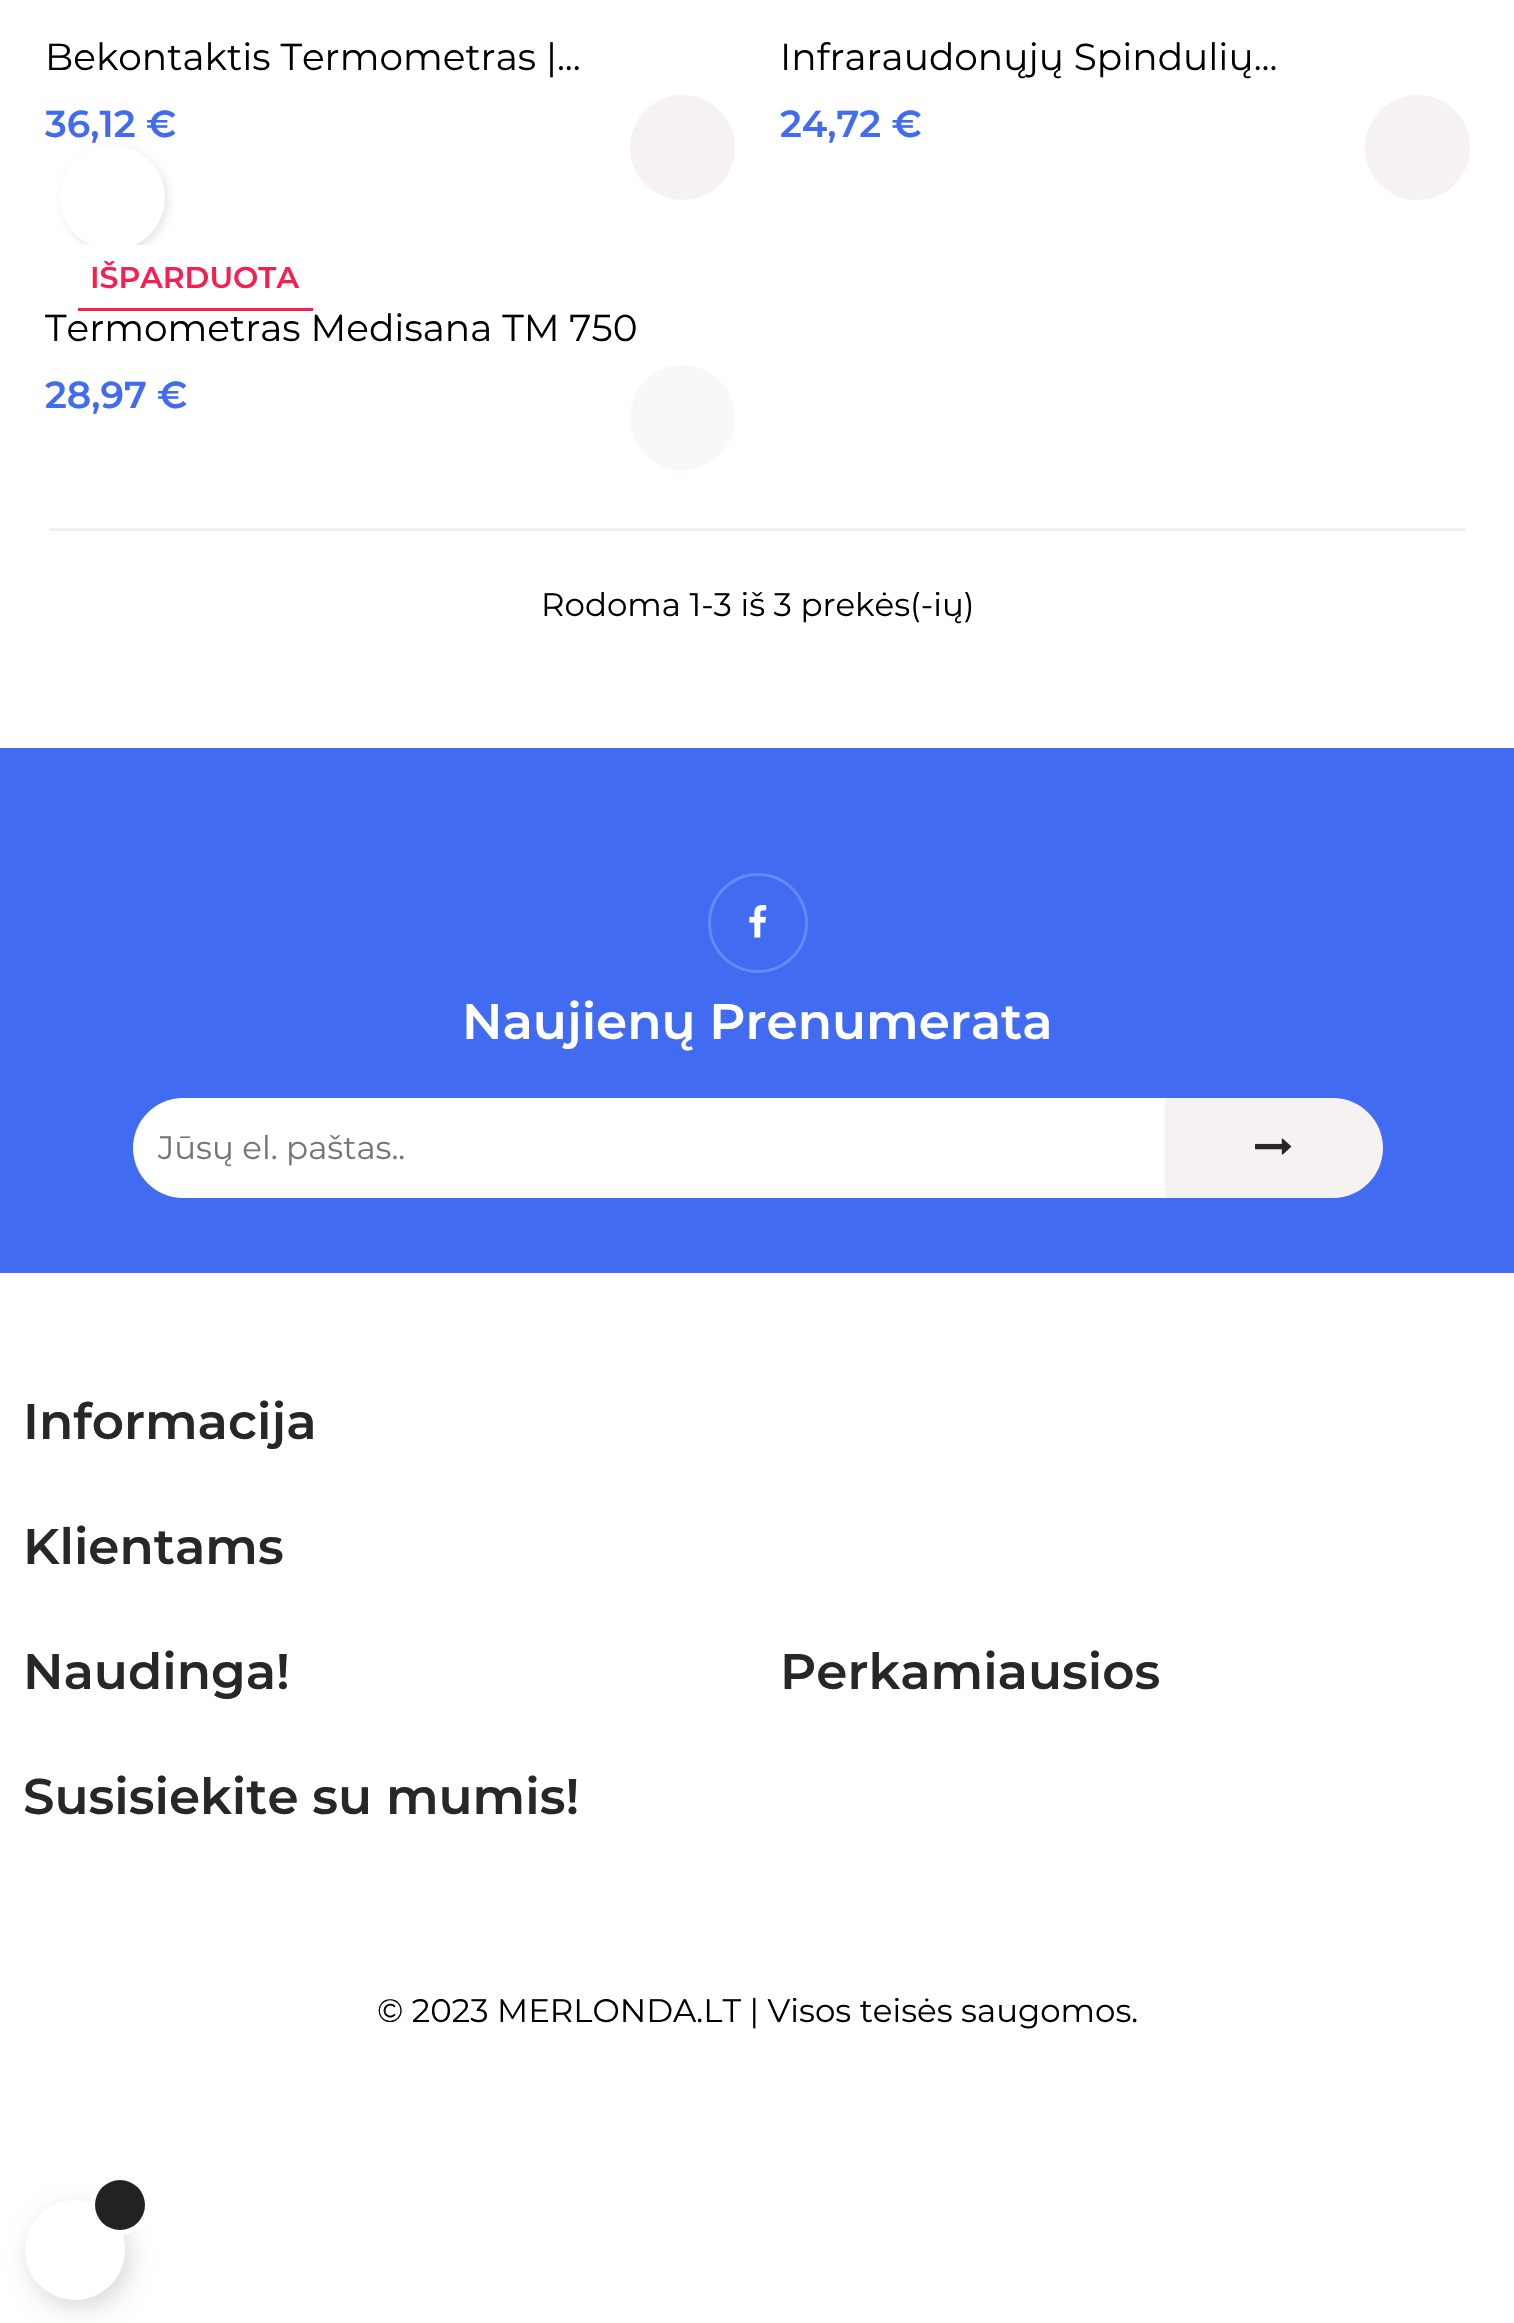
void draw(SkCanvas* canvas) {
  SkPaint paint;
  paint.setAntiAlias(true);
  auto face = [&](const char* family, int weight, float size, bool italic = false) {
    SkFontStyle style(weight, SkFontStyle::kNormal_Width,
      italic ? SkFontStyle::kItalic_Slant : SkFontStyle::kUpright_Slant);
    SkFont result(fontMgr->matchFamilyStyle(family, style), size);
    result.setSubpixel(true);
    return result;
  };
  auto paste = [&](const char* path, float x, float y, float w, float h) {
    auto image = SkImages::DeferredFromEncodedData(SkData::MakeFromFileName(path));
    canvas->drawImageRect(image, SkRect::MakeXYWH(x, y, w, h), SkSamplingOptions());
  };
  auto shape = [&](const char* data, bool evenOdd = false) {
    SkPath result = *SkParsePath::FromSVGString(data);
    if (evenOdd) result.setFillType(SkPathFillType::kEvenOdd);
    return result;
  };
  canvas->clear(0xffffffff);
  paint.setColor(0xfff7f2f2);
  canvas->drawCircle(682.5f, 147.5f, 52.5f, paint);
  canvas->drawCircle(1417.5f, 147.5f, 52.5f, paint);
  paint.setColor(0x1a000000);
  paint.setMaskFilter(SkMaskFilter::MakeBlur(kNormal_SkBlurStyle, 4));
  canvas->drawRoundRect(SkRect::MakeXYWH(63, 148, 105, 105), 52.5f, 52.5f, paint);
  paint.setMaskFilter(nullptr);
  paint.setColor(0xffffffff);
  canvas->drawCircle(112.5f, 197.5f, 52.5f, paint);
  canvas->drawRect(SkRect::MakeXYWH(80, 245, 71, 13), paint);
  paint.setColor(0xfff91d50);
  canvas->drawRect(SkRect::MakeXYWH(78, 308, 235, 3), paint);
  paint.setColor(0xfffaf7f7);
  canvas->drawCircle(682.5f, 417.5f, 52.5f, paint);
  paint.setColor(0xffeeeeee);
  canvas->drawRect(SkRect::MakeXYWH(50, 528, 1415, 3), paint);
  paint.setColor(0xff416bf1);
  canvas->drawRect(SkRect::MakeXYWH(0, 748, 1514, 525), paint);
  paint.setStroke(true);
  paint.setStrokeWidth(3);
  paint.setColor(0xff6789f4);
  canvas->drawCircle(758, 923, 48.5f, paint);
  paste("img/1.png", 749, 905, 18, 33);
  paint.setStroke(false);
  paint.setColor(0xffffffff);
  canvas->drawPath(shape("M183 1098H1165V1198H183C155.5 1198 133 1175.5 133 1148C133 1120.5 155.5 1098 183 1098Z"), paint);
  paint.setColor(0xfff7f2f2);
  canvas->drawPath(shape("M1165 1098H1333C1360.5 1098 1383 1120.5 1383 1148C1383 1175.5 1360.5 1198 1333 1198H1165Z"), paint);
  paste("img/2.png", 1255, 1138, 37, 17);
  paint.setColor(0x26000000);
  paint.setMaskFilter(SkMaskFilter::MakeBlur(kNormal_SkBlurStyle, 12.5f));
  canvas->drawRoundRect(SkRect::MakeXYWH(30, 2208, 100, 100), 50, 50, paint);
  paint.setMaskFilter(nullptr);
  paint.setColor(0xffffffff);
  canvas->drawCircle(75, 2250, 50, paint);
  paint.setStroke(true);
  paint.setStrokeWidth(5);
  canvas->drawCircle(120, 2205, 27.5f, paint);
  paint.setStroke(false);
  paint.setColor(0xff222222);
  canvas->drawCircle(120, 2205, 25, paint);
  auto f0 = face("Montserrat", 400, 37.5f);
  paint.setColor(0xff000000);
  canvas->drawString("Bekontaktis Termometras |...", 45, 70, f0, paint);
  auto f1 = face("Montserrat", 600, 37.5f);
  paint.setColor(0xff416bf1);
  canvas->drawString("36,12 €", 45, 137, f1, paint);
  paint.setColor(0xff000000);
  canvas->drawString("Infraraudonųjų Spindulių...", 780, 70, f0, paint);
  paint.setColor(0xff416bf1);
  canvas->drawString("24,72 €", 780, 137, f1, paint);
  auto f2 = face("Montserrat", 600, 30);
  paint.setColor(0xfff91d50);
  canvas->drawString("IŠPARDUOTA", 90, 288, f2, paint);
  paint.setColor(0xff000000);
  canvas->drawString("Termometras Medisana TM 750", 45, 341, f0, paint);
  paint.setColor(0xff416bf1);
  canvas->drawString("28,97 €", 45, 408, f1, paint);
  auto f3 = face("Montserrat", 400, 32.5f);
  paint.setColor(0xff000000);
  canvas->drawString("Rodoma 1-3 iš 3 prekės(-ių)", 541, 616, f3, paint);
  auto f4 = face("Montserrat", 600, 50);
  paint.setColor(0xffffffff);
  canvas->drawString("Naujienų Prenumerata", 462, 1039, f4, paint);
  paint.setColor(0xff757575);
  canvas->drawString("Jūsų el. paštas..", 158, 1159, f3, paint);
  paint.setColor(0xff272727);
  {
    const struct { const char* s; float x, y; } items[] = {
      {"Informacija", 23, 1439},
      {"Klientams", 23, 1564},
      {"Naudinga!", 23, 1689},
      {"Perkamiausios", 780, 1689},
      {"Susisiekite su mumis!", 23, 1814},
    };
    for (auto [s, x, y] : items) {
      canvas->drawString(s, x, y, f4, paint);
    }
  }
  paint.setColor(0xff000000);
  canvas->drawString("© 2023 MERLONDA.LT | Visos teisės saugomos.", 377, 2022, f3, paint);
}
